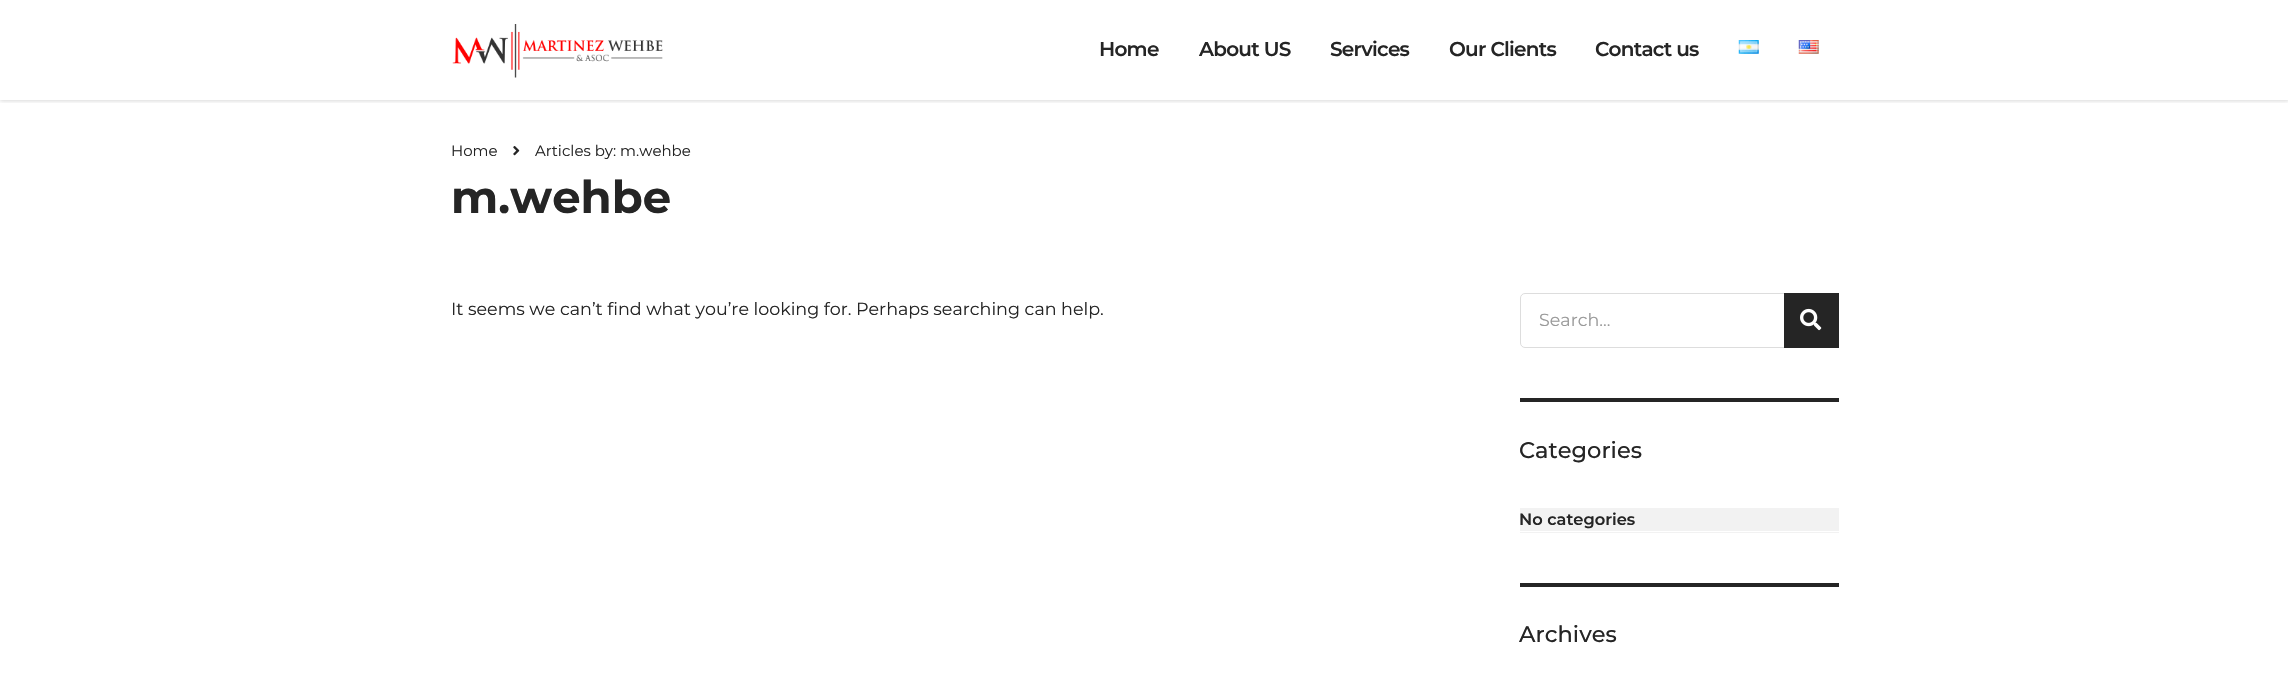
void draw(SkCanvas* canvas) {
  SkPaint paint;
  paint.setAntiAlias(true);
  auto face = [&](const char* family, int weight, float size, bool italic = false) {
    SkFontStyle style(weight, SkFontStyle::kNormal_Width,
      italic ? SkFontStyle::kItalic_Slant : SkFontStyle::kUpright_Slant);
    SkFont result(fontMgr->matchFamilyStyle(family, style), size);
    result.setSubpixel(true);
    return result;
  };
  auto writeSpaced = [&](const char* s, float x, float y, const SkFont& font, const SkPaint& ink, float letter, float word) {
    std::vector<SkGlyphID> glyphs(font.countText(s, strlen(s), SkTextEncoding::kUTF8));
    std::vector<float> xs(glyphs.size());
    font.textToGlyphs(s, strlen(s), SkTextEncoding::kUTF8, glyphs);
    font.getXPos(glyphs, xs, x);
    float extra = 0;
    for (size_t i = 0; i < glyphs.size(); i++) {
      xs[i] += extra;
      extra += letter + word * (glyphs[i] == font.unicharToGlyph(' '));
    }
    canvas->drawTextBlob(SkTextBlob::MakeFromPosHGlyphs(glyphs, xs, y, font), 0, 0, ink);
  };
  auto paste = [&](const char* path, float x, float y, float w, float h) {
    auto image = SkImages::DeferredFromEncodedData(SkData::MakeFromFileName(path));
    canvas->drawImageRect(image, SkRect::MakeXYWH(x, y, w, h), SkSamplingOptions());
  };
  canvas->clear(0xffffffff);
  canvas->save();
  canvas->clipRect(SkRect::MakeXYWH(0, 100, 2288, 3));
  paint.setColor(0x26000000);
  paint.setMaskFilter(SkMaskFilter::MakeBlur(kNormal_SkBlurStyle, 2));
  canvas->drawRect(SkRect::MakeXYWH(0, 1, 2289, 100), paint);
  paint.setMaskFilter(nullptr);
  canvas->restore();
  paste("img/1.png", 452, 24, 211, 54);
  paste("img/2.png", 1738, 40, 21, 14);
  paste("img/3.png", 1798, 40, 21, 14);
  paste("img/4.png", 513, 146, 7, 10);
  paint.setStroke(true);
  paint.setStrokeWidth(1);
  paint.setColor(0xffdddddd);
  canvas->drawRoundRect(SkRect::MakeXYWH(1520.5f, 293.5f, 318, 54), 4.5f, 4.5f, paint);
  paint.setStroke(false);
  paint.setColor(0xff252525);
  canvas->drawRect(SkRect::MakeXYWH(1784, 293, 55, 55), paint);
  paste("img/5.png", 1800, 308, 22, 23);
  {
    const struct { float x, y, w, h; SkColor color; } items[] = {
      {1520, 398, 319, 4, 0xff252525},
      {1520, 508, 319, 25, 0xfff2f2f2},
      {1520, 531, 319, 1, 0xffffffff},
      {1520, 583, 319, 4, 0xff252525},
    };
    for (auto [x, y, w, h, color] : items) {
      paint.setColor(color);
      canvas->drawRect(SkRect::MakeXYWH(x, y, w, h), paint);
    }
  }
  auto f0 = face("Montserrat", 600, 20);
  {
    const struct { const char* s; float x, y; } items[] = {
      {"Home", 1099, 56},
      {"About US", 1199, 56},
      {"Services", 1330, 56},
      {"Our Clients", 1449, 56},
      {"Contact us", 1595, 56},
    };
    for (auto [s, x, y] : items) {
      writeSpaced(s, x, y, f0, paint, -0.75f, 0);
    }
  }
  auto f1 = face("Montserrat", 400, 15);
  canvas->drawString("Home", 451, 156, f1, paint);
  canvas->drawString("Articles by: m.wehbe", 535, 156, f1, paint);
  auto f2 = face("Montserrat", 700, 45);
  canvas->drawString("m.wehbe", 451, 213, f2, paint);
  auto f3 = face("Montserrat", 400, 17.5f);
  canvas->drawString("It seems we can’t find what you’re looking for. Perhaps searching can help.", 451, 315, f3, paint);
  paint.setColor(0xff999999);
  canvas->drawString("Search...", 1539, 326, f3, paint);
  auto f4 = face("Montserrat", 500, 22.5f);
  paint.setColor(0xff252525);
  canvas->drawString("Categories", 1519, 458, f4, paint);
  auto f5 = face("Montserrat", 600, 16.25f);
  canvas->drawString("No categories", 1519, 525, f5, paint);
  canvas->drawString("Archives", 1519, 642, f4, paint);
}
